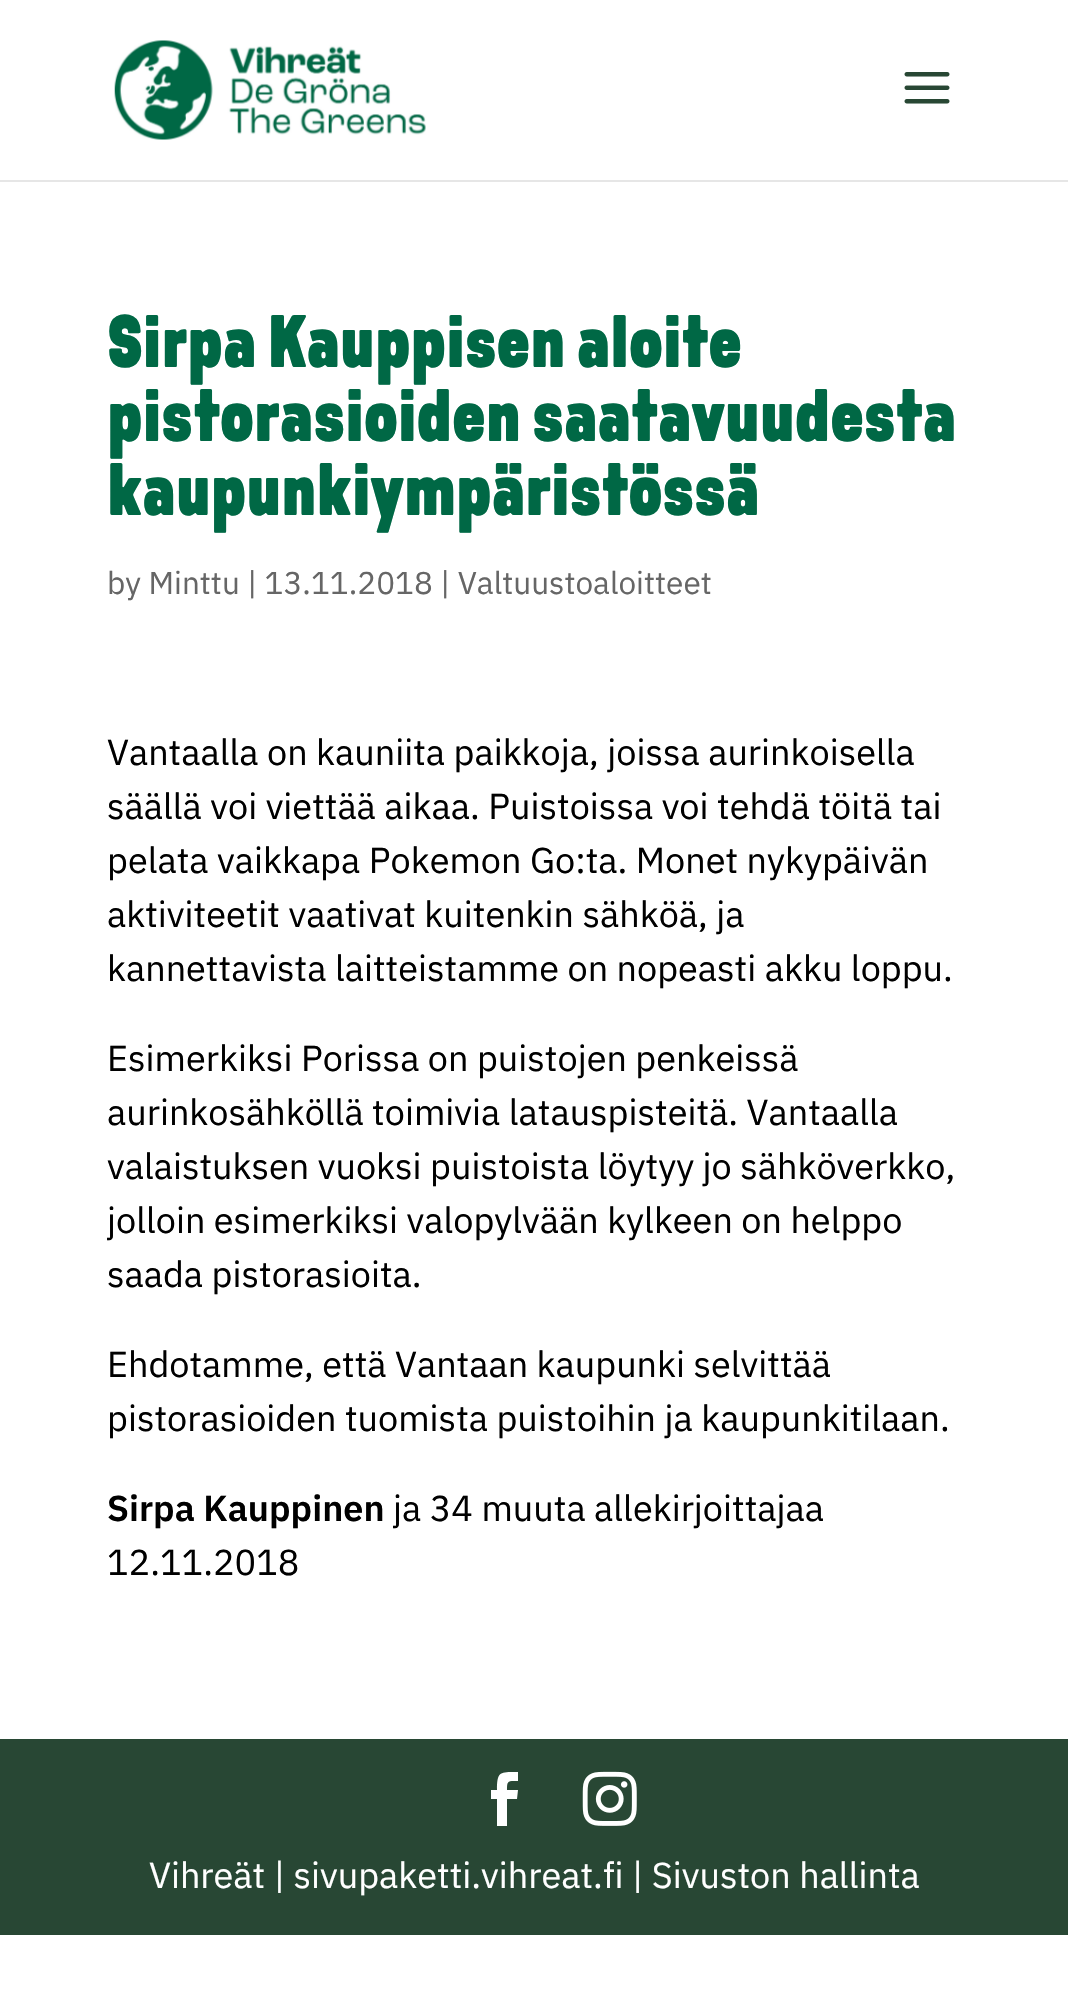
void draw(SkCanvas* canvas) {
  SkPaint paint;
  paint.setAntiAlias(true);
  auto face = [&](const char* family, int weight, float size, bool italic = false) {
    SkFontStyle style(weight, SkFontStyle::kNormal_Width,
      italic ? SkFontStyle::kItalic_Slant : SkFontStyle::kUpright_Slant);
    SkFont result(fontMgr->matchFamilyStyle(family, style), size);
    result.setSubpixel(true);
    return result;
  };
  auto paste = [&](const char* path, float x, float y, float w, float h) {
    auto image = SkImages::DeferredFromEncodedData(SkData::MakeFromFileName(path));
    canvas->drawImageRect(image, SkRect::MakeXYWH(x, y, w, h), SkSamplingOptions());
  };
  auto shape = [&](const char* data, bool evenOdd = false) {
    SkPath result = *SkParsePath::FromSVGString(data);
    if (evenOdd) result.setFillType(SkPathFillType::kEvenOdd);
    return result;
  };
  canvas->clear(0xffffffff);
  paint.setColor(0xffe6e6e6);
  canvas->drawPath(shape("M0 180V182H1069V2V180Z"), paint);
  paste("img/1.png", 114, 40, 312, 100);
  paste("img/2.png", 904, 72, 46, 32);
  paint.setColor(0xff284734);
  canvas->drawRect(SkRect::MakeXYWH(0, 1739, 1068, 196), paint);
  paint.setColor(0xffffffff);
  canvas->drawPath(shape("M497 1826H507V1799H517L518 1790H507C507 1780 508 1781 518 1781V1772C500 1772 497 1771 497 1790H491V1799H497Z"), paint);
  paste("img/3.png", 582, 1771, 55, 55);
  auto f0 = face("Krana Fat", 900, 74.25f);
  paint.setColor(0xff006845);
  {
    const struct { const char* s; float x, y; } items[] = {
      {"Sirpa Kauppisen aloite", 107, 367},
      {"pistorasioiden saatavuudesta", 107, 441},
      {"kaupunkiympäristössä", 107, 515},
    };
    for (auto [s, x, y] : items) {
      canvas->drawString(s, x, y, f0, paint);
    }
  }
  auto f1 = face("IBM Plex Sans", 400, 31.5f);
  paint.setColor(0xff666666);
  canvas->drawString("by Minttu | 13.11.2018 | Valtuustoaloitteet", 107, 594, f1, paint);
  auto f2 = face("IBM Plex Sans", 400, 36);
  paint.setColor(0xff000000);
  {
    const struct { const char* s; float x, y; } items[] = {
      {"Vantaalla on kauniita paikkoja, joissa aurinkoisella", 107, 765},
      {"säällä voi viettää aikaa. Puistoissa voi tehdä töitä tai", 107, 819},
      {"pelata vaikkapa Pokemon Go:ta. Monet nykypäivän", 107, 873},
      {"aktiviteetit vaativat kuitenkin sähköä, ja", 107, 927},
      {"kannettavista laitteistamme on nopeasti akku loppu.", 107, 981},
      {"Esimerkiksi Porissa on puistojen penkeissä", 107, 1071},
      {"aurinkosähköllä toimivia latauspisteitä. Vantaalla", 107, 1125},
      {"valaistuksen vuoksi puistoista löytyy jo sähköverkko,", 107, 1179},
      {"jolloin esimerkiksi valopylvään kylkeen on helppo", 107, 1233},
      {"saada pistorasioita.", 107, 1287},
      {"Ehdotamme, että Vantaan kaupunki selvittää", 107, 1377},
      {"pistorasioiden tuomista puistoihin ja kaupunkitilaan.", 107, 1431},
    };
    for (auto [s, x, y] : items) {
      canvas->drawString(s, x, y, f2, paint);
    }
  }
  auto f3 = face("IBM Plex Sans", 600, 36);
  canvas->drawString("Sirpa Kauppinen", 107, 1521, f3, paint);
  canvas->drawString("ja 34 muuta allekirjoittajaa", 393, 1521, f2, paint);
  canvas->drawString("12.11.2018", 107, 1575, f2, paint);
  paint.setColor(0xffffffff);
  canvas->drawString("Vihreät | sivupaketti.vihreat.fi | Sivuston hallinta", 149, 1888, f2, paint);
}
